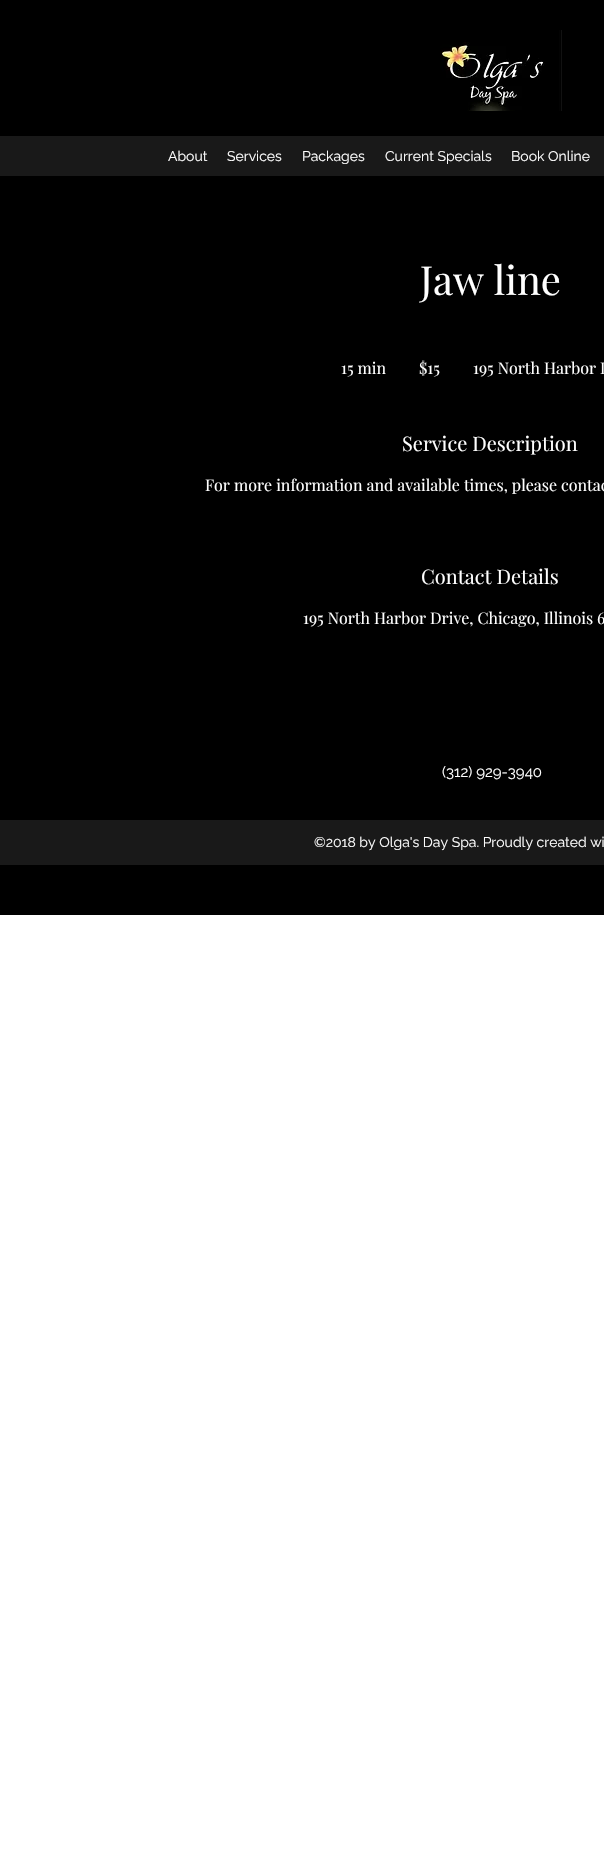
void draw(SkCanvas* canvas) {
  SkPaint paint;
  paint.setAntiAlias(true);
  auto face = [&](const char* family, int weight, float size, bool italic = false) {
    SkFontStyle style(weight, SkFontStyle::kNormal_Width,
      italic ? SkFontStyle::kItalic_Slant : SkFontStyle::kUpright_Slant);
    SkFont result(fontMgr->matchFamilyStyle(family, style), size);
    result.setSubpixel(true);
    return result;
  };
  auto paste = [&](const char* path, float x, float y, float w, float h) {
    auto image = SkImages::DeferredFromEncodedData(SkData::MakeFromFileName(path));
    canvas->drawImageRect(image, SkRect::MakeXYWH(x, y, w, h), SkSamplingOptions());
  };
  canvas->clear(0xffffffff);
  paint.setColor(0xff000000);
  canvas->drawRect(SkRect::MakeXYWH(0, 0, 604, 915), paint);
  paste("img/1.png", 440, 30, 122, 81);
  paint.setColor(0xff191919);
  canvas->drawRect(SkRect::MakeXYWH(0, 136, 604, 40), paint);
  canvas->drawRect(SkRect::MakeXYWH(0, 820, 604, 45), paint);
  auto f0 = face("Raleway", 400, 14);
  paint.setColor(0xffffffff);
  {
    const struct { const char* s; float x, y; } items[] = {
      {"About", 168, 161},
      {"Services", 227, 161},
      {"Packages", 302, 161},
      {"Current Specials", 385, 161},
      {"Book Online", 511, 161},
    };
    for (auto [s, x, y] : items) {
      canvas->drawString(s, x, y, f0, paint);
    }
  }
  auto f1 = face("Playfair Display", 400, 40);
  canvas->drawString("Jaw line", 420, 295, f1, paint);
  auto f2 = face("Playfair Display", 400, 16);
  {
    const struct { const char* s; float x, y; } items[] = {
      {"15 min", 341, 374},
      {"$15", 419, 374},
      {"195 North Harbor D", 473, 374},
    };
    for (auto [s, x, y] : items) {
      canvas->drawString(s, x, y, f2, paint);
    }
  }
  auto f3 = face("Playfair Display", 400, 20);
  canvas->drawString("Service Description", 402, 451, f3, paint);
  canvas->drawString("For more information and available times, please contac", 205, 491, f2, paint);
  canvas->drawString("Contact Details", 421, 584, f3, paint);
  canvas->drawString("195 North Harbor Drive, Chicago, Illinois 6", 303, 624, f2, paint);
  auto f4 = face("Raleway", 400, 15);
  canvas->drawString("(312) 929-3940", 442, 777, f4, paint);
  canvas->drawString("©2018 by Olga's Day Spa. Proudly created wi", 314, 847, f0, paint);
}
